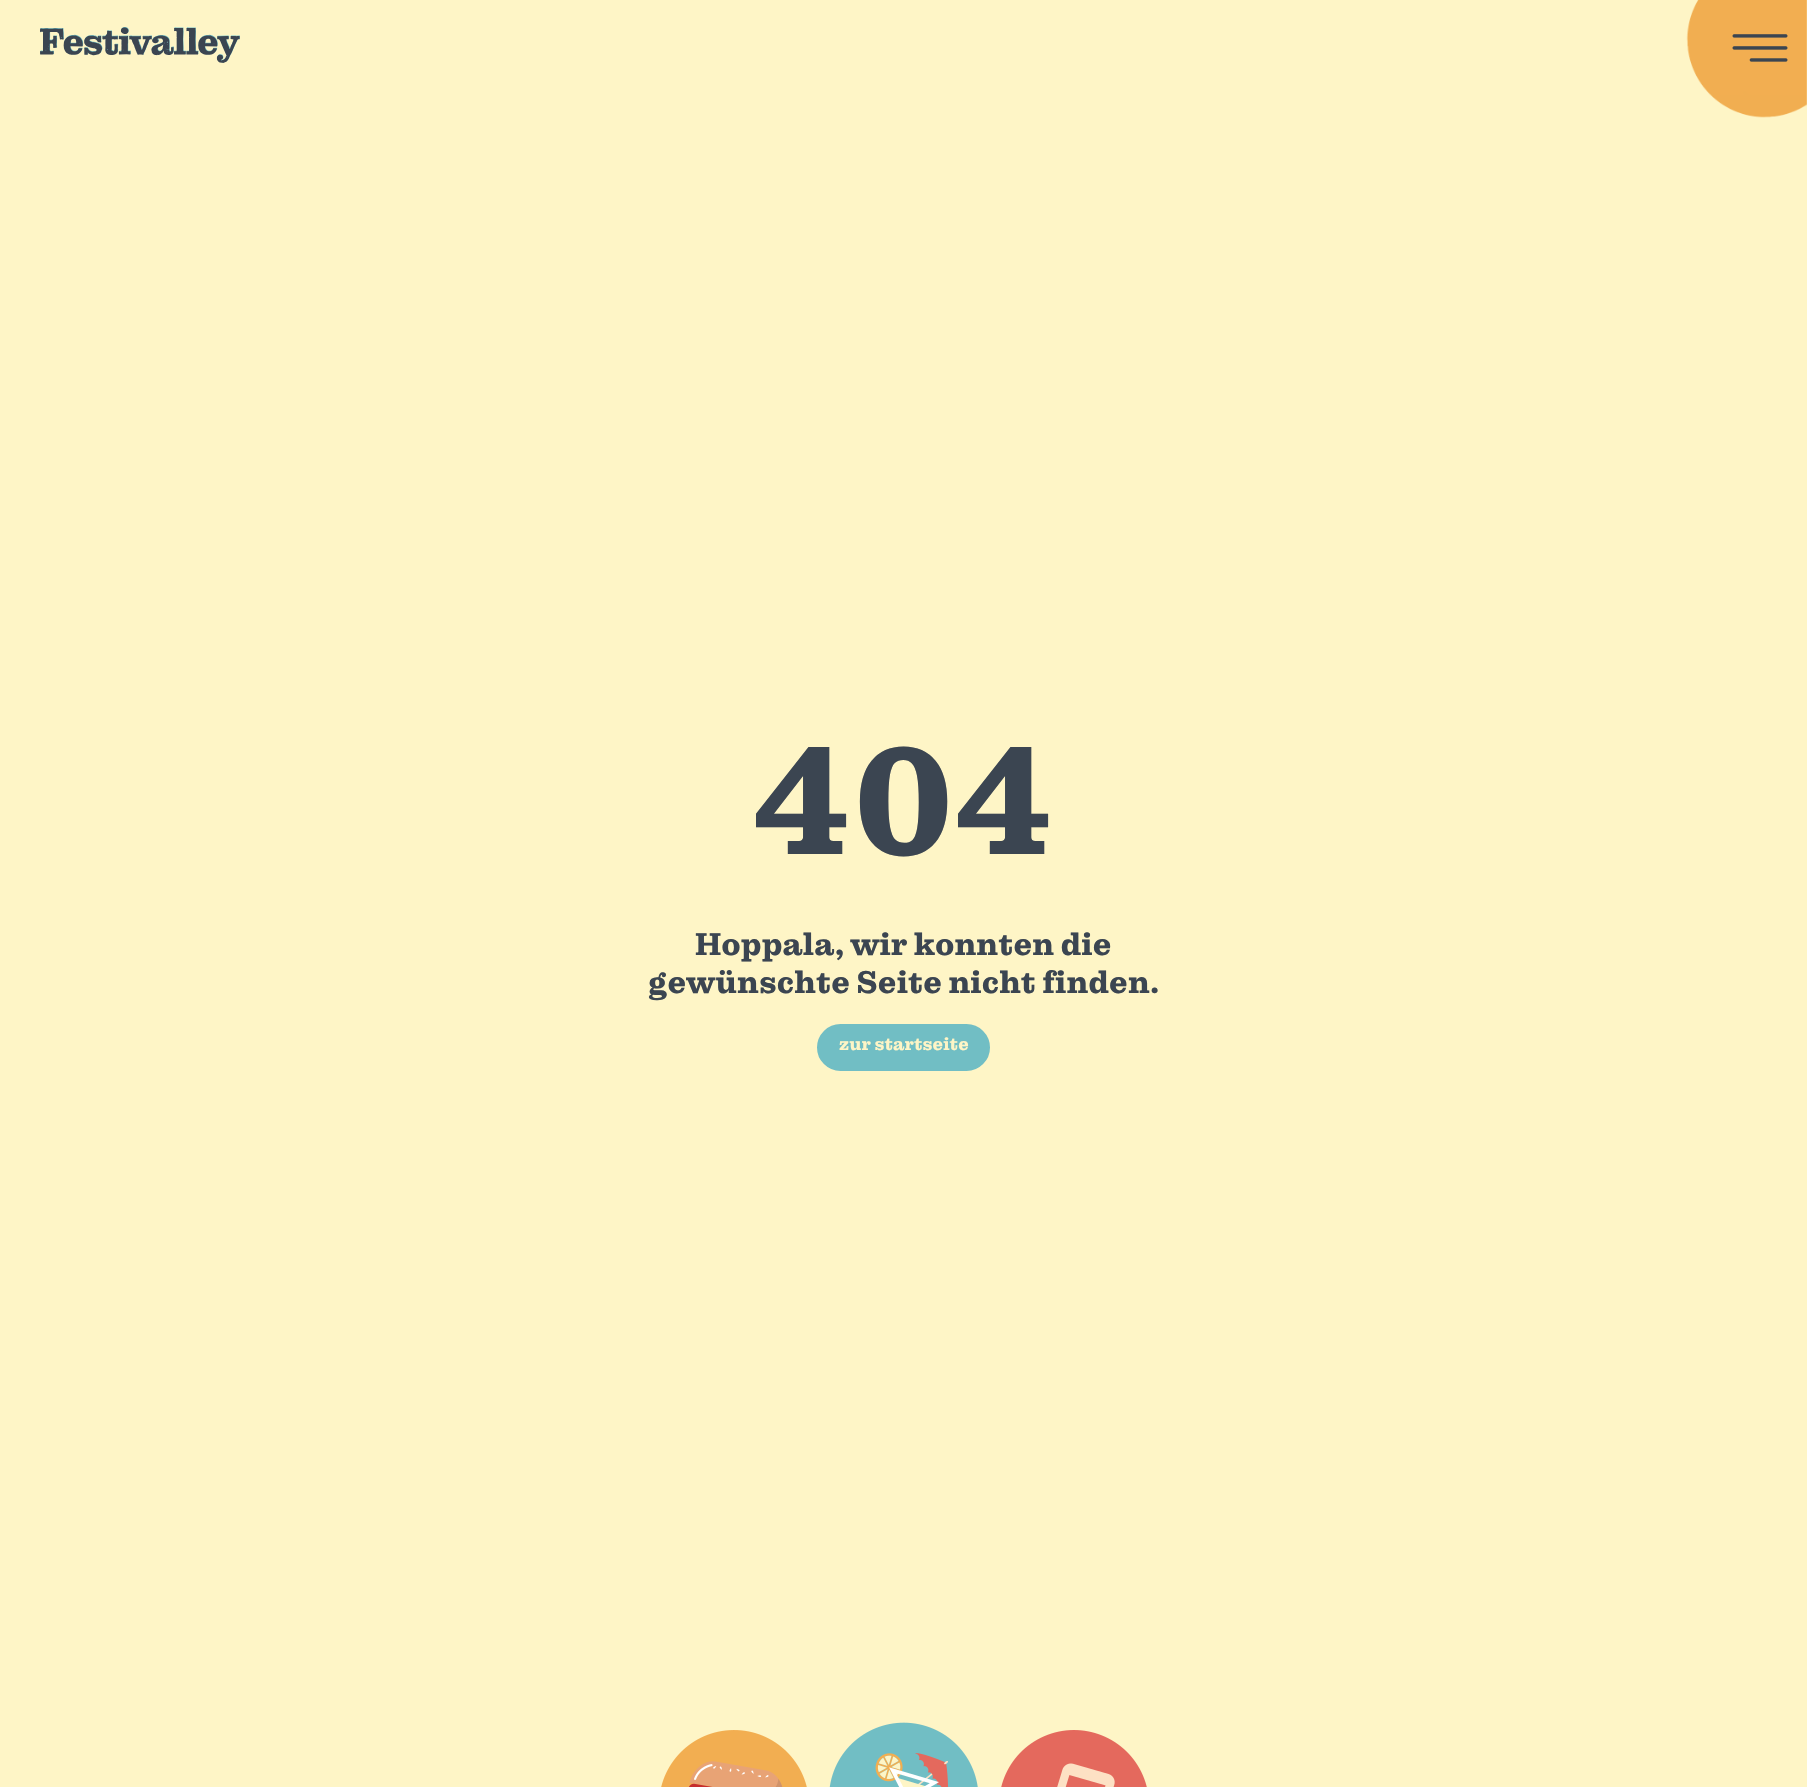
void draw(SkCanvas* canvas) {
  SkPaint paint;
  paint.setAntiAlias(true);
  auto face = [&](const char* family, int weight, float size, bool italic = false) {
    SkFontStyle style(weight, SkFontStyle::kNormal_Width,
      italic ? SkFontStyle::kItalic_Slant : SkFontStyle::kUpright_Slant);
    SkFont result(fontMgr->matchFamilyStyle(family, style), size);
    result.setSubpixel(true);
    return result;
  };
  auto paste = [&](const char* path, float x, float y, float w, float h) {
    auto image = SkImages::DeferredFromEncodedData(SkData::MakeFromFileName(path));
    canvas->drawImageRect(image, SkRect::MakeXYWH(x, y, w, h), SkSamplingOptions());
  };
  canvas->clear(0xfffef5c6);
  paste("img/1.png", 40, 27, 200, 36);
  paste("img/2.png", 1686, 0, 121, 118);
  paste("img/3.png", 1732, 34, 56, 28);
  paint.setColor(0xff71bec4);
  canvas->drawRoundRect(SkRect::MakeXYWH(818, 1025, 171, 45), 22.5f, 22.5f, paint);
  paint.setStroke(true);
  paint.setStrokeWidth(2);
  canvas->drawRoundRect(SkRect::MakeXYWH(818, 1025, 171, 45), 22.5f, 22.5f, paint);
  paste("img/4.png", 661, 1730, 146, 57);
  paste("img/5.png", 829, 1722, 149, 65);
  paste("img/6.png", 1001, 1730, 146, 57);
  auto f0 = face("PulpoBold", 700, 160);
  paint.setStroke(false);
  paint.setColor(0xff3b4551);
  canvas->drawString("404", 752, 854, f0, paint);
  auto f1 = face("PulpoBold", 700, 32);
  canvas->drawString("Hoppala, wir konnten die", 695, 955, f1, paint);
  canvas->drawString("gewünschte Seite nicht finden.", 648, 993, f1, paint);
  auto f2 = face("PulpoBold", 700, 18);
  paint.setColor(0xfffef5c6);
  canvas->drawString("zur startseite", 839, 1050, f2, paint);
}
